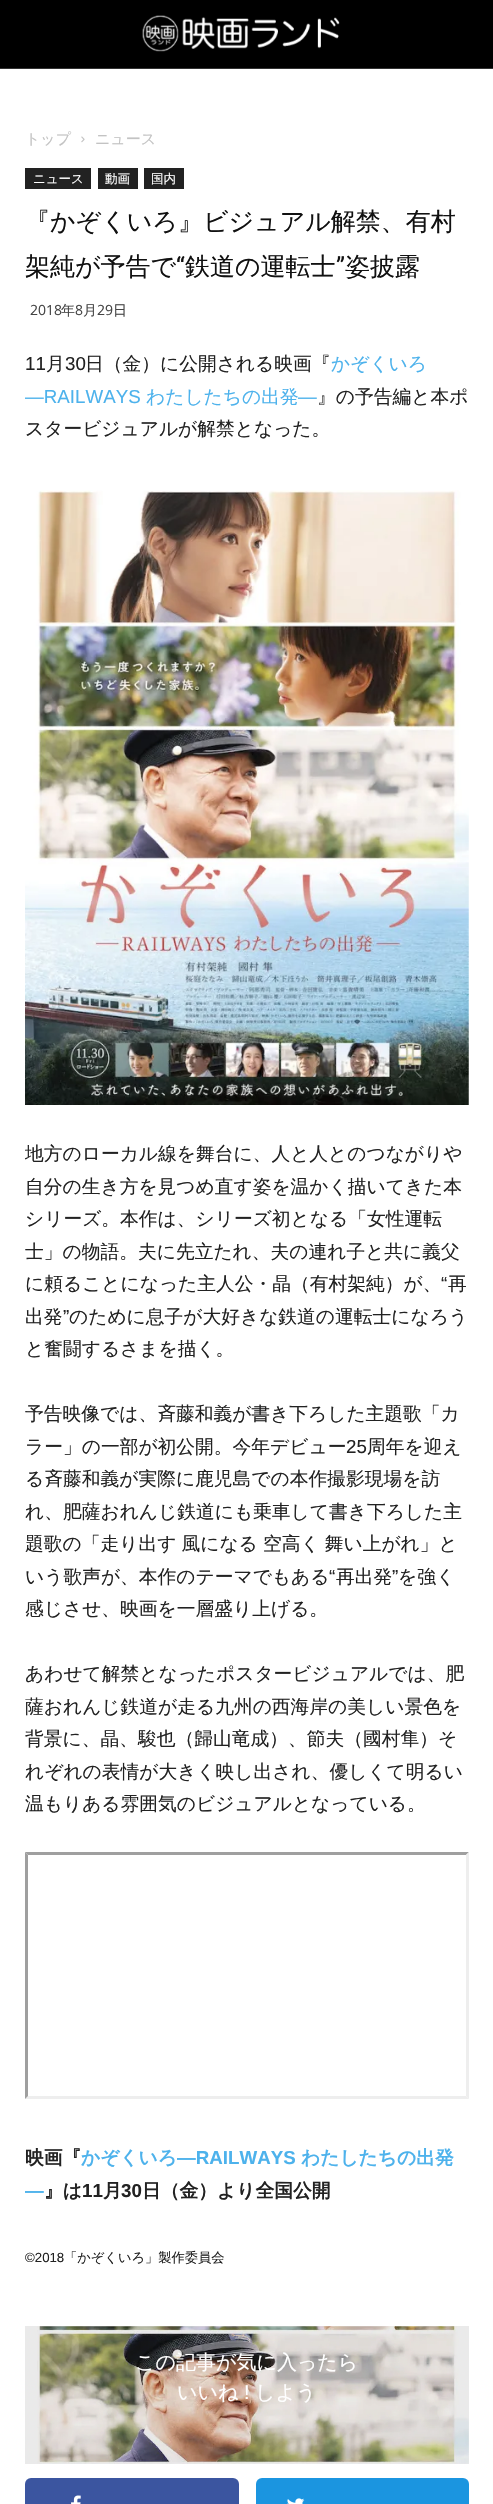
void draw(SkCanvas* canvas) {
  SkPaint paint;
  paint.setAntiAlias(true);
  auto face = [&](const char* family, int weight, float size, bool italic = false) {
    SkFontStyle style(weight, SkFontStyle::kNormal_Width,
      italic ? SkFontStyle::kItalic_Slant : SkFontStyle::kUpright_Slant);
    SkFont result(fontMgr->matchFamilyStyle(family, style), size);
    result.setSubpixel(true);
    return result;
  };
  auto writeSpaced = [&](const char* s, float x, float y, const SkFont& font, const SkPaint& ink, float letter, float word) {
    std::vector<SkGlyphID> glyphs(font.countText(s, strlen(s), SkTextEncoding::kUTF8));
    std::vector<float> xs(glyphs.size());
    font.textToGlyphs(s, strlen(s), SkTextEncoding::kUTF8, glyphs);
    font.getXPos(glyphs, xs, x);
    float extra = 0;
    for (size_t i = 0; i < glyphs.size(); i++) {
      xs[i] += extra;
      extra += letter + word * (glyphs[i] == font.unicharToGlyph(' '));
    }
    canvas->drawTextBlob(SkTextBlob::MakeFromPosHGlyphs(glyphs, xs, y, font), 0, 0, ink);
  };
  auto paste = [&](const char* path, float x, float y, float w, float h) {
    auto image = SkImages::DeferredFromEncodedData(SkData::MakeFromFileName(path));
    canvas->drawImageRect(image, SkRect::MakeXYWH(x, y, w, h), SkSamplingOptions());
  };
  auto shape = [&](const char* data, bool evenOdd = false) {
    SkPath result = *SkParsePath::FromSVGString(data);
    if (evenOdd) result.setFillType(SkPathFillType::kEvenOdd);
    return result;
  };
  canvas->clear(0xffffffff);
  {
    const struct { float x, y, w, h; SkColor color; } items[] = {
      {25, 2326, 444, 138, 0xffeaeaea},
      {0, 0, 493, 68, 0xff000000},
      {0, 68, 493, 1, 0xff333333},
    };
    for (auto [x, y, w, h, color] : items) {
      paint.setColor(color);
      canvas->drawRect(SkRect::MakeXYWH(x, y, w, h), paint);
    }
  }
  paste("img/1.png", 142, 15, 198, 37);
  paste("img/2.png", 81, 136, 4, 7);
  {
    const struct { float x, y, w, h; SkColor color; } items[] = {
      {25, 168, 66, 21, 0xff222222},
      {98, 168, 40, 21, 0xff222222},
      {144, 168, 40, 21, 0xff222222},
    };
    for (auto [x, y, w, h, color] : items) {
      paint.setColor(color);
      canvas->drawRect(SkRect::MakeXYWH(x, y, w, h), paint);
    }
  }
  paste("img/3.png", 25, 490, 444, 615);
  paint.setColor(0xff9f9f9f);
  canvas->drawPath(shape("M25 1852H469L466 1855H28Z"), paint);
  paint.setColor(0xffeeeeee);
  canvas->drawPath(shape("M469 1852V2099L466 2096V1855Z"), paint);
  canvas->drawPath(shape("M469 2099H25L28 2096H466Z"), paint);
  paint.setColor(0xff9f9f9f);
  canvas->drawPath(shape("M25 2099V1852L28 1855V2096Z"), paint);
  paste("img/4.png", 37, 2326, 432, 138);
  paint.setColor(0xff3b55a0);
  canvas->drawRoundRect(SkRect::MakeXYWH(25, 2478, 214, 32), 6, 6, paint);
  paste("img/5.png", 71, 2495, 10, 9);
  paint.setColor(0xff1b95e0);
  canvas->drawRoundRect(SkRect::MakeXYWH(256, 2478, 213, 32), 6, 6, paint);
  paste("img/6.png", 287, 2498, 18, 6);
  auto f0 = face("WenQuanYi Zen Hei", 500, 15);
  paint.setColor(0xffc3c3c3);
  canvas->drawString("トップ", 25, 144, f0, paint);
  canvas->drawString("ニュース", 95, 144, f0, paint);
  auto f1 = face("WenQuanYi Zen Hei", 500, 12.5f);
  paint.setColor(0xffffffff);
  {
    const struct { const char* s; float x, y; } items[] = {
      {"ニュース", 33, 183},
      {"動画", 105, 183},
      {"国内", 151, 183},
    };
    for (auto [s, x, y] : items) {
      canvas->drawString(s, x, y, f1, paint);
    }
  }
  auto f2 = face("WenQuanYi Zen Hei", 500, 25);
  paint.setColor(0xff111111);
  canvas->drawString("『かぞくいろ』ビジュアル解禁、有村", 25, 230, f2, paint);
  canvas->drawString("架純が予告で", 25, 275, f2, paint);
  auto f3 = face("Roboto", 400, 25);
  canvas->drawString("“", 176, 275, f3, paint);
  canvas->drawString("鉄道の運転士", 185, 275, f2, paint);
  canvas->drawString("”", 336, 275, f3, paint);
  canvas->drawString("姿披露", 345, 275, f2, paint);
  auto f4 = face("Open Sans", 400, 14);
  paint.setColor(0xff444444);
  canvas->drawString("2018", 30, 315, f4, paint);
  auto f5 = face("WenQuanYi Zen Hei", 500, 14);
  canvas->drawString("年", 61, 315, f5, paint);
  canvas->drawString("8", 75, 315, f4, paint);
  canvas->drawString("月", 83, 315, f5, paint);
  canvas->drawString("29", 97, 315, f4, paint);
  canvas->drawString("日", 113, 315, f5, paint);
  auto f6 = face("Liberation Sans", 400, 18.75f);
  paint.setColor(0xff222222);
  canvas->drawString("11", 25, 370, f6, paint);
  auto f7 = face("WenQuanYi Zen Hei", 500, 18.75f);
  canvas->drawString("月", 46, 370, f7, paint);
  canvas->drawString("30", 65, 370, f6, paint);
  canvas->drawString("日（金）に公開される映画『", 85, 370, f7, paint);
  paint.setColor(0xff4db2ec);
  canvas->drawString("かぞくいろ", 331, 370, f7, paint);
  canvas->drawString("―RAILWAYS", 25, 403, f6, paint);
  canvas->drawString("わたしたちの出発", 146, 403, f7, paint);
  canvas->drawString("―", 298, 403, f6, paint);
  paint.setColor(0xff222222);
  {
    const struct { const char* s; float x, y; } items[] = {
      {"』の予告編と本ポ", 317, 403},
      {"スタービジュアルが解禁となった。", 25, 435},
      {"地⽅のローカル線を舞台に、⼈と⼈とのつながりや", 25, 1160},
      {"⾃分の⽣き⽅を⾒つめ直す姿を温かく描いてきた本", 25, 1193},
      {"シリーズ。本作は、シリーズ初となる「⼥性運転", 25, 1225},
      {"⼠」の物語。夫に先立たれ、夫の連れ子と共に義父", 25, 1258},
      {"に頼ることになった主人公・晶（有村架純）が、", 25, 1290},
    };
    for (auto [s, x, y] : items) {
      canvas->drawString(s, x, y, f7, paint);
    }
  }
  canvas->drawString("“", 441, 1290, f6, paint);
  canvas->drawString("再", 448, 1290, f7, paint);
  canvas->drawString("出発", 25, 1323, f7, paint);
  canvas->drawString("”", 63, 1323, f6, paint);
  {
    const struct { const char* s; float x, y; } items[] = {
      {"のために息子が大好きな鉄道の運転士になろう", 69, 1323},
      {"と奮闘するさまを描く。", 25, 1355},
      {"予告映像では、斉藤和義が書き下ろした主題歌「カ", 25, 1420},
      {"ラー」の一部が初公開。今年デビュー", 25, 1453},
    };
    for (auto [s, x, y] : items) {
      canvas->drawString(s, x, y, f7, paint);
    }
  }
  canvas->drawString("25", 346, 1453, f6, paint);
  {
    const struct { const char* s; float x, y; } items[] = {
      {"周年を迎え", 367, 1453},
      {"る斉藤和義が実際に鹿児島での本作撮影現場を訪", 25, 1485},
      {"れ、肥薩おれんじ鉄道にも乗車して書き下ろした主", 25, 1518},
    };
    for (auto [s, x, y] : items) {
      canvas->drawString(s, x, y, f7, paint);
    }
  }
  writeSpaced("題歌の「走り出す 風になる 空高く 舞い上がれ」と", 25, 1550, f7, paint, 0, -0.5f);
  canvas->drawString("いう歌声が、本作のテーマでもある", 25, 1583, f7, paint);
  canvas->drawString("“", 329, 1583, f6, paint);
  canvas->drawString("再出発", 336, 1583, f7, paint);
  canvas->drawString("”", 392, 1583, f6, paint);
  {
    const struct { const char* s; float x, y; } items[] = {
      {"を強く", 398, 1583},
      {"感じさせ、映画を一層盛り上げる。", 25, 1615},
      {"あわせて解禁となったポスタービジュアルでは、肥", 25, 1680},
      {"薩おれんじ鉄道が走る九州の西海岸の美しい景色を", 25, 1713},
      {"背景に、晶、駿也（歸山竜成）、節夫（國村隼）そ", 25, 1745},
      {"れぞれの表情が大きく映し出され、優しくて明るい", 25, 1778},
      {"温もりある雰囲気のビジュアルとなっている。", 25, 1810},
    };
    for (auto [s, x, y] : items) {
      canvas->drawString(s, x, y, f7, paint);
    }
  }
  auto f8 = face("WenQuanYi Zen Hei", 700, 18.75f);
  canvas->drawString("映画『", 25, 2164, f8, paint);
  paint.setColor(0xff4db2ec);
  canvas->drawString("かぞくいろ", 81, 2164, f8, paint);
  auto f9 = face("Liberation Sans", 700, 18.75f);
  canvas->drawString("―RAILWAYS", 177, 2164, f9, paint);
  canvas->drawString("わたしたちの出発", 301, 2164, f8, paint);
  canvas->drawString("―", 25, 2197, f9, paint);
  paint.setColor(0xff222222);
  canvas->drawString("』は", 44, 2197, f8, paint);
  canvas->drawString("11", 82, 2197, f9, paint);
  canvas->drawString("月", 103, 2197, f8, paint);
  canvas->drawString("30", 121, 2197, f9, paint);
  canvas->drawString("日（金）より全国公開", 142, 2197, f8, paint);
  auto f10 = face("Liberation Sans", 400, 13.25f);
  canvas->drawString("©2018", 25, 2262, f10, paint);
  auto f11 = face("WenQuanYi Zen Hei", 500, 13.25f);
  canvas->drawString("「かぞくいろ」製作委員会", 64, 2262, f11, paint);
  auto f12 = face("WenQuanYi Zen Hei", 500, 20);
  paint.setColor(0xffffffff);
  canvas->drawString("この記事が気に入ったら", 135, 2369, f12, paint);
  canvas->drawString("いいね", 177, 2399, f12, paint);
  auto f13 = face("Liberation Sans", 400, 20);
  canvas->drawString("!", 244, 2399, f13, paint);
  canvas->drawString("しよう", 255, 2399, f12, paint);
}
